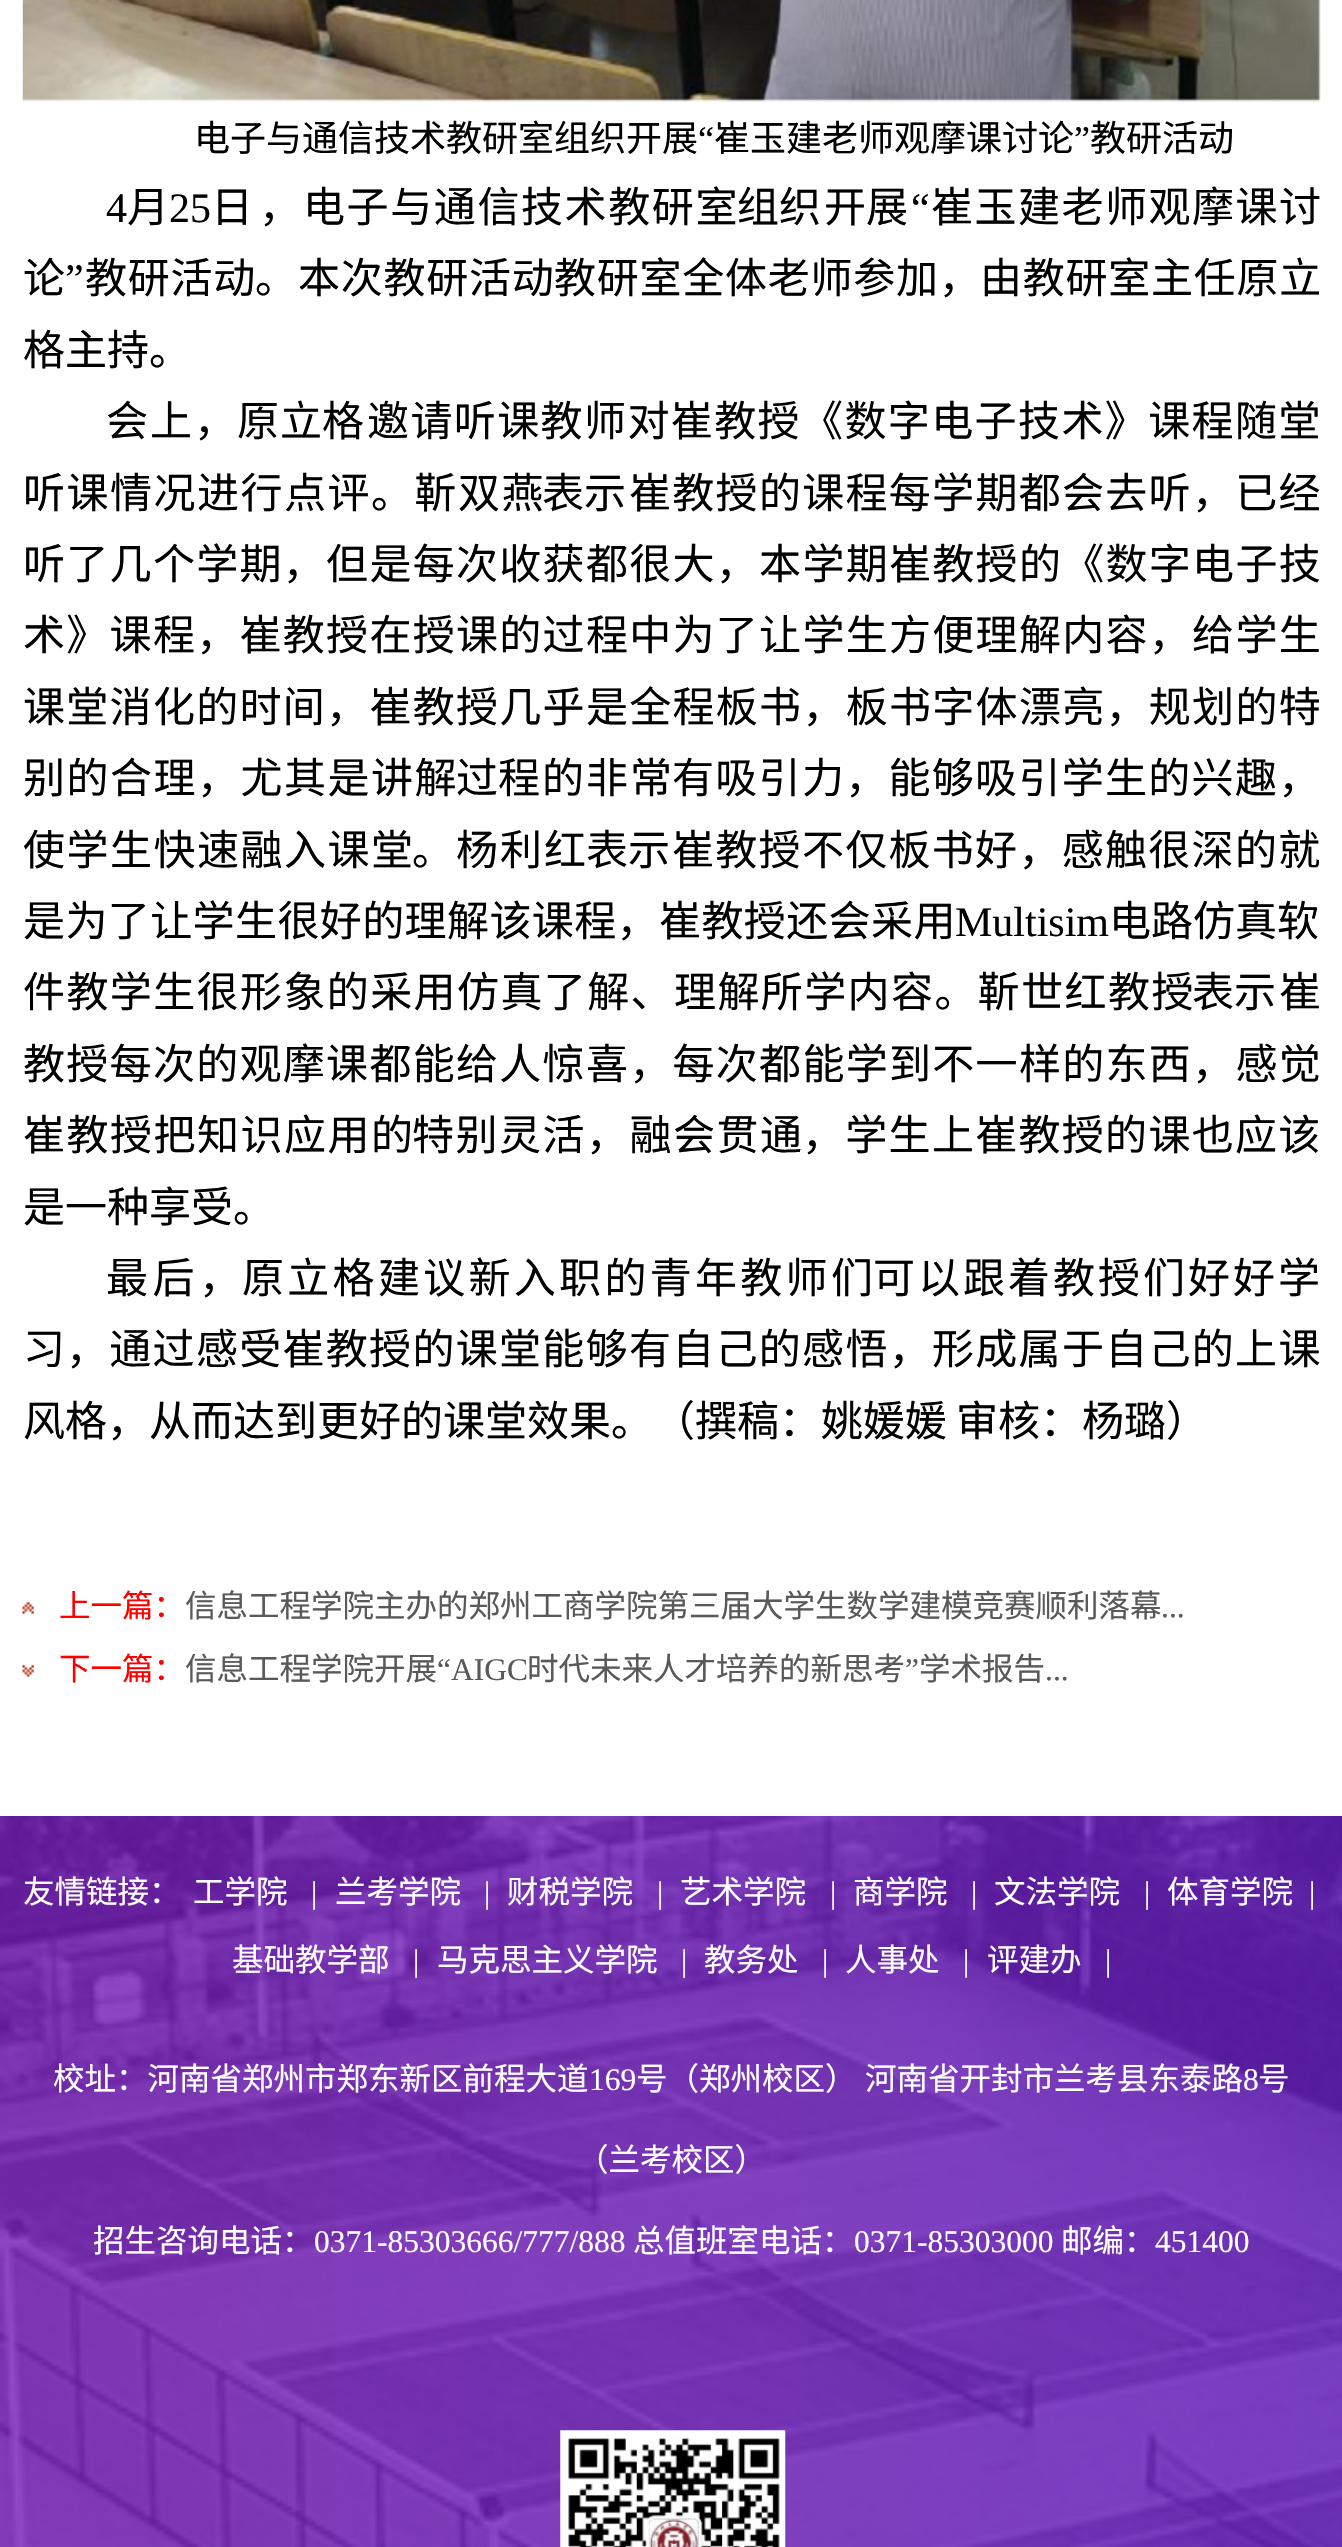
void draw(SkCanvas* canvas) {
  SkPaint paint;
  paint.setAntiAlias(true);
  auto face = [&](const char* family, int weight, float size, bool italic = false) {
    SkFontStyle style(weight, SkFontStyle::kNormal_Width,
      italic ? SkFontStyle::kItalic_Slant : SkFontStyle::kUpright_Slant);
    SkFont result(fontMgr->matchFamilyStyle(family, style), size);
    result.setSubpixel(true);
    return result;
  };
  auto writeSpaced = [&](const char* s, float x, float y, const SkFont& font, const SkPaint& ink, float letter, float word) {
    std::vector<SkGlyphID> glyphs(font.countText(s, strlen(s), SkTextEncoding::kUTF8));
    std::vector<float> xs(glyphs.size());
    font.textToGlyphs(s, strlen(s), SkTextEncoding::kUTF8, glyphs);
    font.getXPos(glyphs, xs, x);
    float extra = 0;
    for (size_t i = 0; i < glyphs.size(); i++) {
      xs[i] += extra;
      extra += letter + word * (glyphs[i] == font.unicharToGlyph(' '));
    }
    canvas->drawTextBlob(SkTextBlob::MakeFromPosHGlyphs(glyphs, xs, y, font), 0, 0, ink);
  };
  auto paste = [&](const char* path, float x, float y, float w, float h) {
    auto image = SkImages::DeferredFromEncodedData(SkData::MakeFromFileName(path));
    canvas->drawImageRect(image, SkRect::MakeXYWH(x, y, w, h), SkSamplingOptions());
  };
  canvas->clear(0xffffffff);
  paste("img/1.png", 22, 0, 1299, 102);
  paste("img/2.png", 22, 1602, 12, 75);
  paste("img/3.png", 0, 1816, 1342, 731);
  paste("img/4.png", 560, 2430, 226, 117);
  auto f0 = face("Noto Sans CJK SC", 400, 36);
  paint.setColor(0xff000000);
  canvas->drawString("电子与通信技术教研室组织开展", 194, 151, f0, paint);
  auto f1 = face("Liberation Serif", 400, 36);
  canvas->drawString("“", 698, 151, f1, paint);
  canvas->drawString("崔玉建老师观摩课讨论", 714, 151, f0, paint);
  canvas->drawString("”", 1074, 151, f1, paint);
  canvas->drawString("教研活动", 1090, 151, f0, paint);
  auto f2 = face("Liberation Serif", 400, 42);
  canvas->drawString("4", 106, 222, f2, paint);
  auto f3 = face("Noto Sans CJK SC", 400, 42);
  canvas->drawString("月", 127, 222, f3, paint);
  canvas->drawString("25", 169, 222, f2, paint);
  canvas->drawString("日", 211, 222, f3, paint);
  writeSpaced("电子与通信技术教研室", 303, 222, f3, paint, 1.6f, 0);
  canvas->drawString("组织", 737, 222, f3, paint);
  canvas->drawString("开展", 824, 222, f3, paint);
  writeSpaced("“", 911, 222, f2, paint, 1.5f, 0);
  writeSpaced("崔玉建老师观摩课讨", 931, 222, f3, paint, 1.5f, 0);
  canvas->drawString("，", 259, 222, f3, paint);
  writeSpaced("论", 23, 293, f3, paint, 0.75f, 0);
  writeSpaced("”", 65, 293, f2, paint, 0.75f, 0);
  {
    const struct { const char* s; float x, y; } items[] = {
      {"教研活动", 85, 293},
      {"本次教研活动", 298, 293},
      {"教研室全体老师参加，", 554, 293},
      {"由教研室主任原立", 980, 293},
    };
    for (auto [s, x, y] : items) {
      writeSpaced(s, x, y, f3, paint, 0.75f, 0);
    }
  }
  canvas->drawString("。", 255, 293, f3, paint);
  canvas->drawString("格主持。", 23, 365, f3, paint);
  writeSpaced("会上，", 106, 436, f3, paint, 2, 0);
  canvas->drawString("原", 237, 436, f3, paint);
  canvas->drawString("立格", 280, 436, f3, paint);
  writeSpaced("邀请听课教师对崔教授《数字电子技术》课程随堂", 367, 436, f3, paint, 1.4f, 0);
  writeSpaced("听课情况进行点评。靳双燕", 23, 508, f3, paint, 1.5f, 0);
  canvas->drawString("表示", 542, 508, f3, paint);
  {
    const struct { const char* s; float x, y; } items[] = {
      {"崔教授的课程每学期都会去听，已经", 629, 508},
      {"听了几个学期，但是每次收获都很大，本学期崔教授的《数字电子技", 23, 579},
      {"术》课程，崔教授在授课的过程中为了让学生方便理解内容，给学生", 23, 650},
      {"课堂消化的时间，崔教授几乎是全程板书，板书字体漂亮，规划的特", 23, 722},
    };
    for (auto [s, x, y] : items) {
      writeSpaced(s, x, y, f3, paint, 1.3f, 0);
    }
  }
  writeSpaced("别的合理，尤其是讲解", 23, 793, f3, paint, 1.5f, 0);
  canvas->drawString("过程", 456, 793, f3, paint);
  writeSpaced("的非常", 542, 793, f3, paint, 2, 0);
  writeSpaced("有吸引力，能够吸引学生的兴趣，", 672, 793, f3, paint, 1.3f, 0);
  writeSpaced("使学生快速融入课堂", 23, 865, f3, paint, 1.5f, 0);
  writeSpaced("。杨利红", 412, 865, f3, paint, 2, 0);
  canvas->drawString("表示", 586, 865, f3, paint);
  writeSpaced("崔教授不仅板书好，感触很深的就", 672, 865, f3, paint, 1.3f, 0);
  writeSpaced("是为了让学生很好的理解该课程，崔教授还会采用", 23, 936, f3, paint, 0.4f, 0);
  canvas->drawString("Multisim", 955, 936, f2, paint);
  canvas->drawString("电路仿真软", 1109, 936, f3, paint);
  writeSpaced("件教学生很形象的采用仿真了解、理解所学内容。靳世红教授", 23, 1007, f3, paint, 1.4f, 0);
  canvas->drawString("表示", 1192, 1007, f3, paint);
  canvas->drawString("崔", 1279, 1007, f3, paint);
  writeSpaced("教授每次的观摩课都能给人惊喜，每次都能学到不一样的东西，感觉", 23, 1079, f3, paint, 1.3f, 0);
  writeSpaced("崔教授把知识应用的", 23, 1150, f3, paint, 1.5f, 0);
  writeSpaced("特别灵活，融会贯通", 412, 1150, f3, paint, 1.5f, 0);
  writeSpaced("，学生上崔教授的课也应该", 802, 1150, f3, paint, 1.3f, 0);
  canvas->drawString("是一种享受。", 23, 1222, f3, paint);
  writeSpaced("最后，", 106, 1293, f3, paint, 4.5f, 0);
  writeSpaced("原立格建议新入职的青年教师们", 242, 1293, f3, paint, 3.3f, 0);
  writeSpaced("可以跟着教授们好好学", 873, 1293, f3, paint, 3, 0);
  canvas->drawString("习", 23, 1364, f3, paint);
  writeSpaced("，通过感受崔教授的课堂能够有自己的感悟，形成属于自己的上课", 66, 1364, f3, paint, 1.3f, 0);
  canvas->drawString("风格，从而达到更好的课堂效果。（撰稿：姚媛媛", 23, 1436, f3, paint);
  canvas->drawString("审核：杨璐）", 956, 1436, f3, paint);
  auto f4 = face("Noto Sans CJK SC", 400, 31.5f);
  paint.setColor(0xffff0000);
  canvas->drawString("上一篇：", 59, 1617, f4, paint);
  paint.setColor(0xff595959);
  canvas->drawString("信息工程学院主办的郑州工商学院第三届大学生数学建模竞赛顺利落幕", 185, 1617, f4, paint);
  auto f5 = face("Liberation Serif", 400, 31.5f);
  canvas->drawString("...", 1161, 1617, f5, paint);
  paint.setColor(0xffff0000);
  canvas->drawString("下一篇：", 59, 1680, f4, paint);
  paint.setColor(0xff595959);
  canvas->drawString("信息工程学院开展", 185, 1680, f4, paint);
  canvas->drawString("“AIGC", 437, 1680, f5, paint);
  canvas->drawString("时代未来人才培养的新思考", 527, 1680, f4, paint);
  canvas->drawString("”", 905, 1680, f5, paint);
  canvas->drawString("学术报告", 919, 1680, f4, paint);
  canvas->drawString("...", 1045, 1680, f5, paint);
  paint.setColor(0xffffffff);
  canvas->drawString("友情链接：", 23, 1903, f4, paint);
  canvas->drawString("工学院", 193, 1903, f4, paint);
  canvas->drawString("|", 311, 1903, f5, paint);
  canvas->drawString("兰考学院", 335, 1903, f4, paint);
  canvas->drawString("|", 484, 1903, f5, paint);
  canvas->drawString("财税学院", 507, 1903, f4, paint);
  canvas->drawString("|", 657, 1903, f5, paint);
  canvas->drawString("艺术学院", 680, 1903, f4, paint);
  canvas->drawString("|", 830, 1903, f5, paint);
  canvas->drawString("商学院", 853, 1903, f4, paint);
  canvas->drawString("|", 971, 1903, f5, paint);
  canvas->drawString("文法学院", 994, 1903, f4, paint);
  canvas->drawString("|", 1144, 1903, f5, paint);
  canvas->drawString("体育学院", 1167, 1903, f4, paint);
  canvas->drawString("|", 1309, 1903, f5, paint);
  canvas->drawString("基础教学部", 232, 1971, f4, paint);
  canvas->drawString("|", 413, 1971, f5, paint);
  canvas->drawString("马克思主义学院", 437, 1971, f4, paint);
  canvas->drawString("|", 681, 1971, f5, paint);
  canvas->drawString("教务处", 704, 1971, f4, paint);
  canvas->drawString("|", 822, 1971, f5, paint);
  canvas->drawString("人事处", 845, 1971, f4, paint);
  canvas->drawString("|", 963, 1971, f5, paint);
  canvas->drawString("评建办", 987, 1971, f4, paint);
  canvas->drawString("|", 1105, 1971, f5, paint);
  canvas->drawString("校址：河南省郑州市郑东新区前程大道", 53, 2090, f4, paint);
  canvas->drawString("169", 589, 2090, f5, paint);
  canvas->drawString("号（郑州校区）", 636, 2090, f4, paint);
  canvas->drawString("河南省开封市兰考县东泰路", 865, 2090, f4, paint);
  canvas->drawString("8", 1243, 2090, f5, paint);
  {
    const struct { const char* s; float x, y; } items[] = {
      {"号", 1258, 2090},
      {"（兰考校区）", 577, 2171},
      {"招生咨询电话：", 93, 2252},
    };
    for (auto [s, x, y] : items) {
      canvas->drawString(s, x, y, f4, paint);
    }
  }
  canvas->drawString("0371-85303666/777/888", 314, 2252, f5, paint);
  canvas->drawString("总值班室电话：", 633, 2252, f4, paint);
  canvas->drawString("0371-85303000", 854, 2252, f5, paint);
  canvas->drawString("邮编：", 1061, 2252, f4, paint);
  canvas->drawString("451400", 1155, 2252, f5, paint);
}
